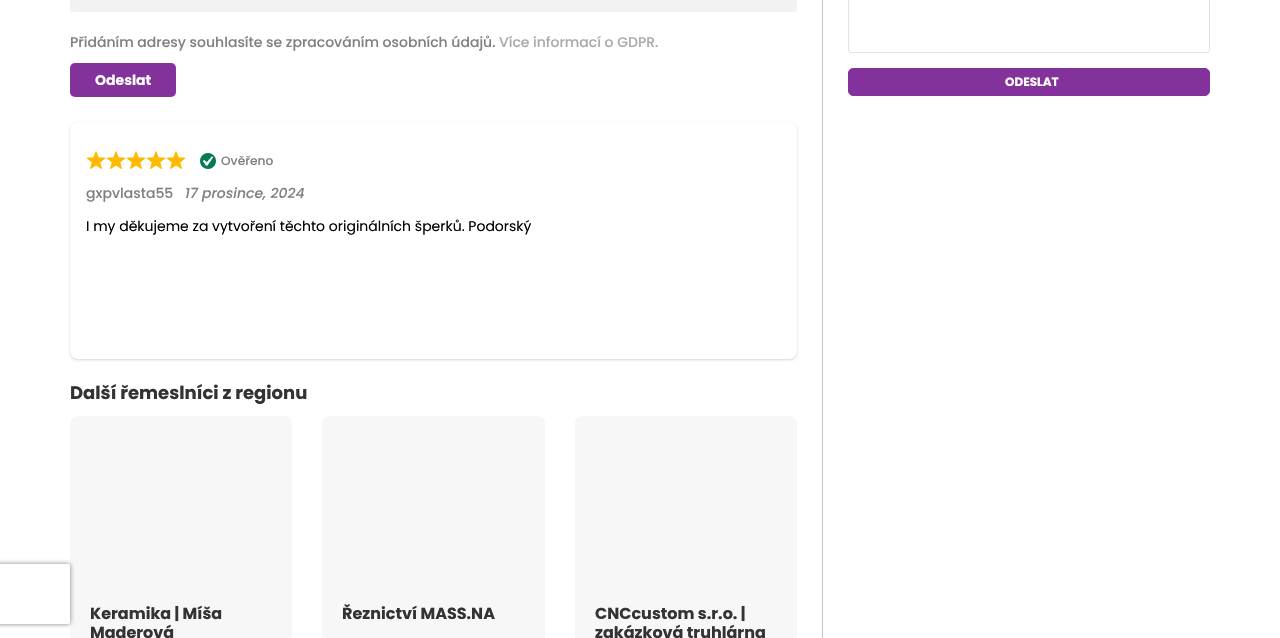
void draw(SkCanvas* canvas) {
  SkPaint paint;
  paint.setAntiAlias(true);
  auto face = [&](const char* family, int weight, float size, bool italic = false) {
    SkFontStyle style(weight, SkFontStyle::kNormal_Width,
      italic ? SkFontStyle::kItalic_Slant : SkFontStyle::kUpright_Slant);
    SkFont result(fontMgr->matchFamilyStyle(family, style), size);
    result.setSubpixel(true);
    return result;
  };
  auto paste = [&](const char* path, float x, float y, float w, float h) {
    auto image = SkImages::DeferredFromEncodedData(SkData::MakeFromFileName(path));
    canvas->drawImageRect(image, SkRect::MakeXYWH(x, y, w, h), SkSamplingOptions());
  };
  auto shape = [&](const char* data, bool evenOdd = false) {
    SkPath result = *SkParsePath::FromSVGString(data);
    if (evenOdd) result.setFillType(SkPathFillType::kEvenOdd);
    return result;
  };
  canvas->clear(0xffffffff);
  paint.setColor(0xfff2f2f2);
  canvas->drawRoundRect(SkRect::MakeXYWH(70, -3, 727, 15), 3, 3, paint);
  paint.setColor(0xff84329b);
  canvas->drawRoundRect(SkRect::MakeXYWH(70, 63, 106, 34), 5, 5, paint);
  paint.setColor(0xfff7f7f7);
  canvas->drawRoundRect(SkRect::MakeXYWH(70, 416, 222, 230), 8, 8, paint);
  canvas->save();
  canvas->clipPath(shape("M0 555H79V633H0ZM-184 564H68C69 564 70 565 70 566V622C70 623 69 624 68 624H-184C-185 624-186 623-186 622V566C-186 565-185 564-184 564Z", true), true);
  paint.setColor(0xff808080);
  paint.setMaskFilter(SkMaskFilter::MakeBlur(kNormal_SkBlurStyle, 2.5f));
  canvas->drawRoundRect(SkRect::MakeXYWH(-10, 564, 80, 60), 2, 2, paint);
  paint.setMaskFilter(nullptr);
  canvas->restore();
  paint.setColor(0x0f000000);
  paint.setMaskFilter(SkMaskFilter::MakeBlur(kNormal_SkBlurStyle, 1));
  canvas->drawRoundRect(SkRect::MakeXYWH(70, 123, 727, 237), 8, 8, paint);
  paint.setMaskFilter(nullptr);
  paint.setColor(0x1a000000);
  paint.setMaskFilter(SkMaskFilter::MakeBlur(kNormal_SkBlurStyle, 1.5f));
  canvas->drawRoundRect(SkRect::MakeXYWH(70, 123, 727, 237), 8, 8, paint);
  paint.setMaskFilter(nullptr);
  paint.setColor(0xffffffff);
  canvas->drawRoundRect(SkRect::MakeXYWH(70, 122, 727, 237), 8, 8, paint);
  paste("img/1.png", 86, 151, 20, 18);
  paste("img/1.png", 106, 151, 20, 18);
  paste("img/1.png", 126, 151, 20, 18);
  paste("img/1.png", 146, 151, 20, 18);
  paste("img/1.png", 166, 151, 20, 18);
  paste("img/2.png", 200, 153, 16, 16);
  paint.setColor(0xfff7f7f7);
  canvas->drawRoundRect(SkRect::MakeXYWH(322, 416, 223, 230), 8, 8, paint);
  canvas->drawRoundRect(SkRect::MakeXYWH(575, 416, 222, 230), 8, 8, paint);
  paint.setColor(0xffc2c2c2);
  canvas->drawRect(SkRect::MakeXYWH(822, 0, 1, 638), paint);
  paint.setStroke(true);
  paint.setStrokeWidth(1);
  paint.setColor(0xffe3e3e3);
  canvas->drawRoundRect(SkRect::MakeXYWH(848.5f, -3.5f, 361, 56), 2.5f, 2.5f, paint);
  paint.setStroke(false);
  paint.setColor(0xff84329b);
  canvas->drawRoundRect(SkRect::MakeXYWH(848.5f, 68.5f, 361, 27), 4.5f, 4.5f, paint);
  paint.setStroke(true);
  canvas->drawRoundRect(SkRect::MakeXYWH(848.5f, 68.5f, 361, 27), 4.5f, 4.5f, paint);
  auto f0 = face("Poppins", 500, 14);
  paint.setStroke(false);
  paint.setColor(0xff7f7f7f);
  canvas->drawString("Přidáním adresy souhlasíte se zpracováním osobních údajů.", 70, 47, f0, paint);
  paint.setColor(0xffaaaaaa);
  canvas->drawString("Více informací o GDPR.", 499, 47, f0, paint);
  auto f1 = face("Poppins", 700, 14);
  paint.setColor(0xffffffff);
  canvas->drawString("Odeslat", 95, 85, f1, paint);
  auto f2 = face("Poppins", 500, 12.25f);
  paint.setColor(0xff7f7f7f);
  canvas->drawString("Ověřeno", 221, 165, f2, paint);
  canvas->drawString("gxpvlasta55", 86, 198, f0, paint);
  auto f3 = face("Poppins", 500, 14, true);
  canvas->drawString("17 prosince, 2024", 185, 198, f3, paint);
  auto f4 = face("Poppins", 400, 14);
  paint.setColor(0xff000000);
  canvas->drawString("I my děkujeme za vytvoření těchto originálních šperků. Podorský", 86, 231, f4, paint);
  auto f5 = face("Poppins", 700, 18);
  paint.setColor(0xff333333);
  canvas->drawString("Další řemeslníci z regionu", 70, 399, f5, paint);
  auto f6 = face("Poppins", 700, 16);
  {
    const struct { const char* s; float x, y; } items[] = {
      {"Keramika | Míša", 90, 619},
      {"Maderová", 90, 638},
      {"Řeznictví MASS.NA", 342, 619},
      {"CNCcustom s.r.o. |", 595, 619},
      {"zakázková truhlárna", 595, 638},
    };
    for (auto [s, x, y] : items) {
      canvas->drawString(s, x, y, f6, paint);
    }
  }
  auto f7 = face("Poppins", 700, 12);
  paint.setColor(0xffffffff);
  canvas->drawString("ODESLAT", 1005, 86, f7, paint);
}
